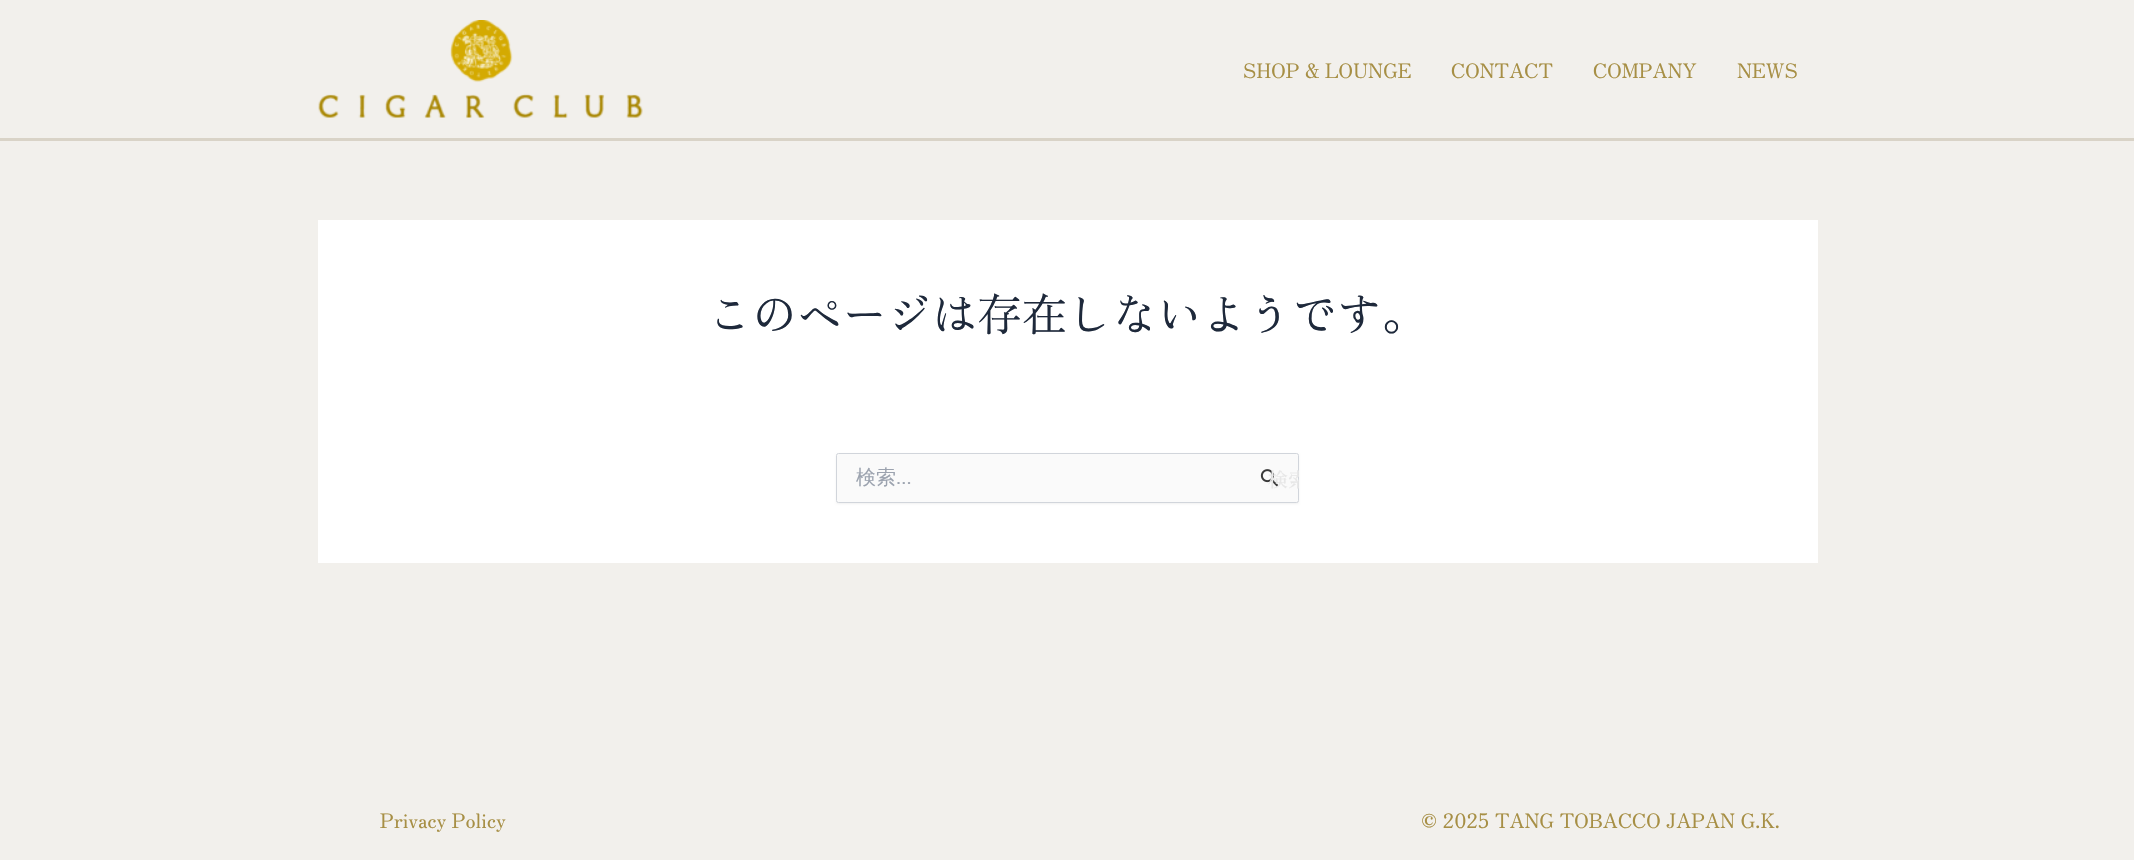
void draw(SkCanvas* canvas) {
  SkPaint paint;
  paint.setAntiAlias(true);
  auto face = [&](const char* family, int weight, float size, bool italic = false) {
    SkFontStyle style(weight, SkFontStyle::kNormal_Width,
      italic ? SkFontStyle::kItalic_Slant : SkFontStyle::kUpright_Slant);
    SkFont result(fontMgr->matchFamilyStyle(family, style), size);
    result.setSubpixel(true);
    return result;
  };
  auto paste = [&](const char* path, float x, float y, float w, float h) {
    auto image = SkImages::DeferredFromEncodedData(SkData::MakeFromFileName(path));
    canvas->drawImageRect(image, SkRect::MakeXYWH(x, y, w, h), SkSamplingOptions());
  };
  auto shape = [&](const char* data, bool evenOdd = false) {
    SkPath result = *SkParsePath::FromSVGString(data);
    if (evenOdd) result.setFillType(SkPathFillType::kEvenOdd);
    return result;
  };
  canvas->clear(0xfff2f0ec);
  paint.setColor(0xffd9d3c7);
  canvas->drawRect(SkRect::MakeXYWH(0, 138, 2134, 3), paint);
  paste("img/1.png", 318, 20, 325, 98);
  paint.setColor(0xffffffff);
  canvas->drawRect(SkRect::MakeXYWH(318, 220, 1500, 343), paint);
  paint.setColor(0x0d000000);
  paint.setMaskFilter(SkMaskFilter::MakeBlur(kNormal_SkBlurStyle, 1));
  canvas->drawRoundRect(SkRect::MakeXYWH(836, 454, 463, 50), 2.5f, 2.5f, paint);
  paint.setMaskFilter(nullptr);
  paint.setColor(0xfffafafa);
  canvas->drawRoundRect(SkRect::MakeXYWH(836.5f, 453.5f, 462, 49), 2, 2, paint);
  paint.setStroke(true);
  paint.setStrokeWidth(1);
  paint.setColor(0xffd1d5db);
  canvas->drawRoundRect(SkRect::MakeXYWH(836.5f, 453.5f, 462, 49), 2, 2, paint);
  paste("img/2.png", 1260, 469, 18, 18);
  auto f0 = face("Zen Old Mincho", 400, 20);
  paint.setStroke(false);
  paint.setColor(0xffa78f45);
  {
    const struct { const char* s; float x, y; } items[] = {
      {"SHOP & LOUNGE", 1243, 78},
      {"CONTACT", 1451, 78},
      {"COMPANY", 1593, 78},
      {"NEWS", 1737, 78},
    };
    for (auto [s, x, y] : items) {
      canvas->drawString(s, x, y, f0, paint);
    }
  }
  auto f1 = face("Zen Old Mincho", 400, 45);
  paint.setColor(0xff1e293b);
  canvas->drawString("このページは存在しないようです。", 707, 331, f1, paint);
  auto f2 = face("WenQuanYi Zen Hei", 500, 20);
  paint.setColor(0xff9ca3af);
  canvas->drawString("検索", 856, 484, f2, paint);
  auto f3 = face("Roboto", 400, 20);
  canvas->drawString("...", 896, 484, f3, paint);
  canvas->save();
  canvas->clipPath(shape("M1245.5 453H1296.5C1298 453 1299 454 1299 455.5V502.5C1299 504 1298 505 1296.5 505H1245.5C1244 505 1243 504 1243 502.5V455.5C1243 454 1244 453 1245.5 453Z"), true);
  auto f4 = face("Zen Old Mincho", 500, 20);
  paint.setColor(0xffe7e7e7);
  canvas->drawString("検索", 1268, 487, f4, paint);
  canvas->restore();
  paint.setColor(0xffa78f45);
  canvas->drawString("Privacy Policy", 380, 828, f0, paint);
  canvas->drawString("© 2025 TANG TOBACCO JAPAN G.K.", 1421, 828, f0, paint);
}
